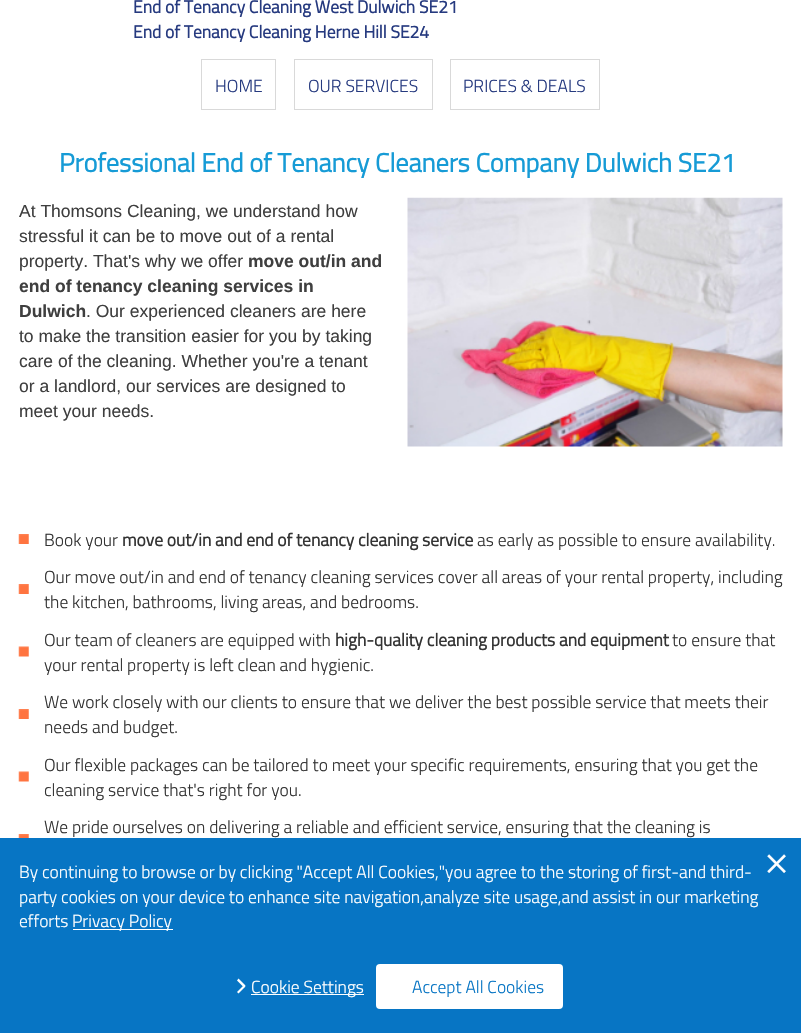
void draw(SkCanvas* canvas) {
  SkPaint paint;
  paint.setAntiAlias(true);
  auto face = [&](const char* family, int weight, float size, bool italic = false) {
    SkFontStyle style(weight, SkFontStyle::kNormal_Width,
      italic ? SkFontStyle::kItalic_Slant : SkFontStyle::kUpright_Slant);
    SkFont result(fontMgr->matchFamilyStyle(family, style), size);
    result.setSubpixel(true);
    return result;
  };
  auto paste = [&](const char* path, float x, float y, float w, float h) {
    auto image = SkImages::DeferredFromEncodedData(SkData::MakeFromFileName(path));
    canvas->drawImageRect(image, SkRect::MakeXYWH(x, y, w, h), SkSamplingOptions());
  };
  auto shape = [&](const char* data, bool evenOdd = false) {
    SkPath result = *SkParsePath::FromSVGString(data);
    if (evenOdd) result.setFillType(SkPathFillType::kEvenOdd);
    return result;
  };
  canvas->clear(0xffffffff);
  paint.setStroke(true);
  paint.setStrokeWidth(1);
  paint.setColor(0xffd9d9d9);
  canvas->drawRect(SkRect::MakeXYWH(201.5f, 59.5f, 74, 50), paint);
  canvas->drawRect(SkRect::MakeXYWH(294.5f, 59.5f, 138, 50), paint);
  canvas->drawRect(SkRect::MakeXYWH(450.5f, 59.5f, 149, 50), paint);
  paste("img/1.png", 407, 197, 376, 250);
  paste("img/2.png", 18, 534, 11, 10);
  paste("img/2.png", 18, 584, 11, 10);
  paste("img/3.png", 18, 646, 11, 11);
  paste("img/2.png", 18, 709, 11, 10);
  paste("img/3.png", 18, 771, 11, 11);
  paste("img/4.png", 18, 834, 11, 4);
  paint.setStroke(false);
  paint.setColor(0xff0775c4);
  canvas->drawRect(SkRect::MakeXYWH(0, 838, 801, 195), paint);
  paint.setColor(0xffffffff);
  canvas->drawPath(shape("M237 980.5L238.5 978.5L245.5 985.5L244 987.5Z"), paint);
  canvas->drawRect(SkRect::MakeXYWH(251, 994, 113, 1), paint);
  canvas->drawPath(shape("M244 985L245.5 986.5L238.5 993.5L237 992Z"), paint);
  canvas->drawRoundRect(SkRect::MakeXYWH(376, 964, 187, 45), 4, 4, paint);
  canvas->drawRect(SkRect::MakeXYWH(73, 929, 100, 1), paint);
  auto f0 = face("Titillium", 700, 17.5f);
  paint.setColor(0xff263a7f);
  canvas->drawString("End of Tenancy Cleaning West Dulwich SE21", 133, 13, f0, paint);
  canvas->drawString("End of Tenancy Cleaning Herne Hill SE24", 133, 38, f0, paint);
  auto f1 = face("Titillium", 300, 17.5f);
  {
    const struct { const char* s; float x, y; } items[] = {
      {"HOME", 215, 92},
      {"OUR SERVICES", 308, 92},
      {"PRICES & DEALS", 463, 92},
    };
    for (auto [s, x, y] : items) {
      canvas->drawString(s, x, y, f1, paint);
    }
  }
  auto f2 = face("Titillium", 700, 26.25f);
  paint.setColor(0xff169bd6);
  canvas->drawString("Professional End of Tenancy Cleaners Company Dulwich SE21", 59, 172, f2, paint);
  auto f3 = face("Liberation Sans", 400, 17.5f);
  paint.setColor(0xff3f3f3f);
  {
    const struct { const char* s; float x, y; } items[] = {
      {"At Thomsons Cleaning, we understand how", 19, 217},
      {"stressful it can be to move out of a rental", 19, 242},
      {"property. That's why we offer", 19, 267},
    };
    for (auto [s, x, y] : items) {
      canvas->drawString(s, x, y, f3, paint);
    }
  }
  auto f4 = face("Liberation Sans", 700, 17.5f);
  {
    const struct { const char* s; float x, y; } items[] = {
      {"move out/in and", 248, 267},
      {"end of tenancy cleaning services in", 19, 292},
      {"Dulwich", 19, 317},
    };
    for (auto [s, x, y] : items) {
      canvas->drawString(s, x, y, f4, paint);
    }
  }
  {
    const struct { const char* s; float x, y; } items[] = {
      {". Our experienced cleaners are here", 86, 317},
      {"to make the transition easier for you by taking", 19, 342},
      {"care of the cleaning. Whether you're a tenant", 19, 367},
      {"or a landlord, our services are designed to", 19, 392},
      {"meet your needs.", 19, 417},
    };
    for (auto [s, x, y] : items) {
      canvas->drawString(s, x, y, f3, paint);
    }
  }
  paint.setColor(0xff333333);
  canvas->drawString("Book your", 44, 546, f1, paint);
  canvas->drawString("move out/in and end of tenancy cleaning service", 122, 546, f0, paint);
  {
    const struct { const char* s; float x, y; } items[] = {
      {"as early as possible to ensure availability.", 477, 546},
      {"Our move out/in and end of tenancy cleaning services cover all areas of your rental property, including", 44, 583},
      {"the kitchen, bathrooms, living areas, and bedrooms.", 44, 608},
      {"Our team of cleaners are equipped with", 44, 646},
    };
    for (auto [s, x, y] : items) {
      canvas->drawString(s, x, y, f1, paint);
    }
  }
  canvas->drawString("high-quality cleaning products and equipment", 335, 646, f0, paint);
  {
    const struct { const char* s; float x, y; } items[] = {
      {"to ensure that", 672, 646},
      {"your rental property is left clean and hygienic.", 44, 671},
      {"We work closely with our clients to ensure that we deliver the best possible service that meets their", 44, 708},
      {"needs and budget.", 44, 733},
      {"Our flexible packages can be tailored to meet your specific requirements, ensuring that you get the", 44, 771},
      {"cleaning service that's right for you.", 44, 796},
      {"We pride ourselves on delivering a reliable and efficient service, ensuring that the cleaning is", 44, 833},
    };
    for (auto [s, x, y] : items) {
      canvas->drawString(s, x, y, f1, paint);
    }
  }
  auto f5 = face("Titillium", 300, 45);
  paint.setColor(0xffffffff);
  canvas->drawString("×", 764, 875, f5, paint);
  canvas->drawString("Cookie Settings", 251, 993, f1, paint);
  paint.setColor(0xff0775c4);
  canvas->drawString("Accept All Cookies", 412, 993, f1, paint);
  paint.setColor(0xffffffff);
  {
    const struct { const char* s; float x, y; } items[] = {
      {"By continuing to browse or by clicking \"Accept All Cookies,\"you agree to the storing of first-and third-", 19, 878},
      {"party cookies on your device to enhance site navigation,analyze site usage,and assist in our marketing", 19, 903},
      {"efforts", 19, 927},
      {"Privacy Policy", 72, 927},
    };
    for (auto [s, x, y] : items) {
      canvas->drawString(s, x, y, f1, paint);
    }
  }
}
